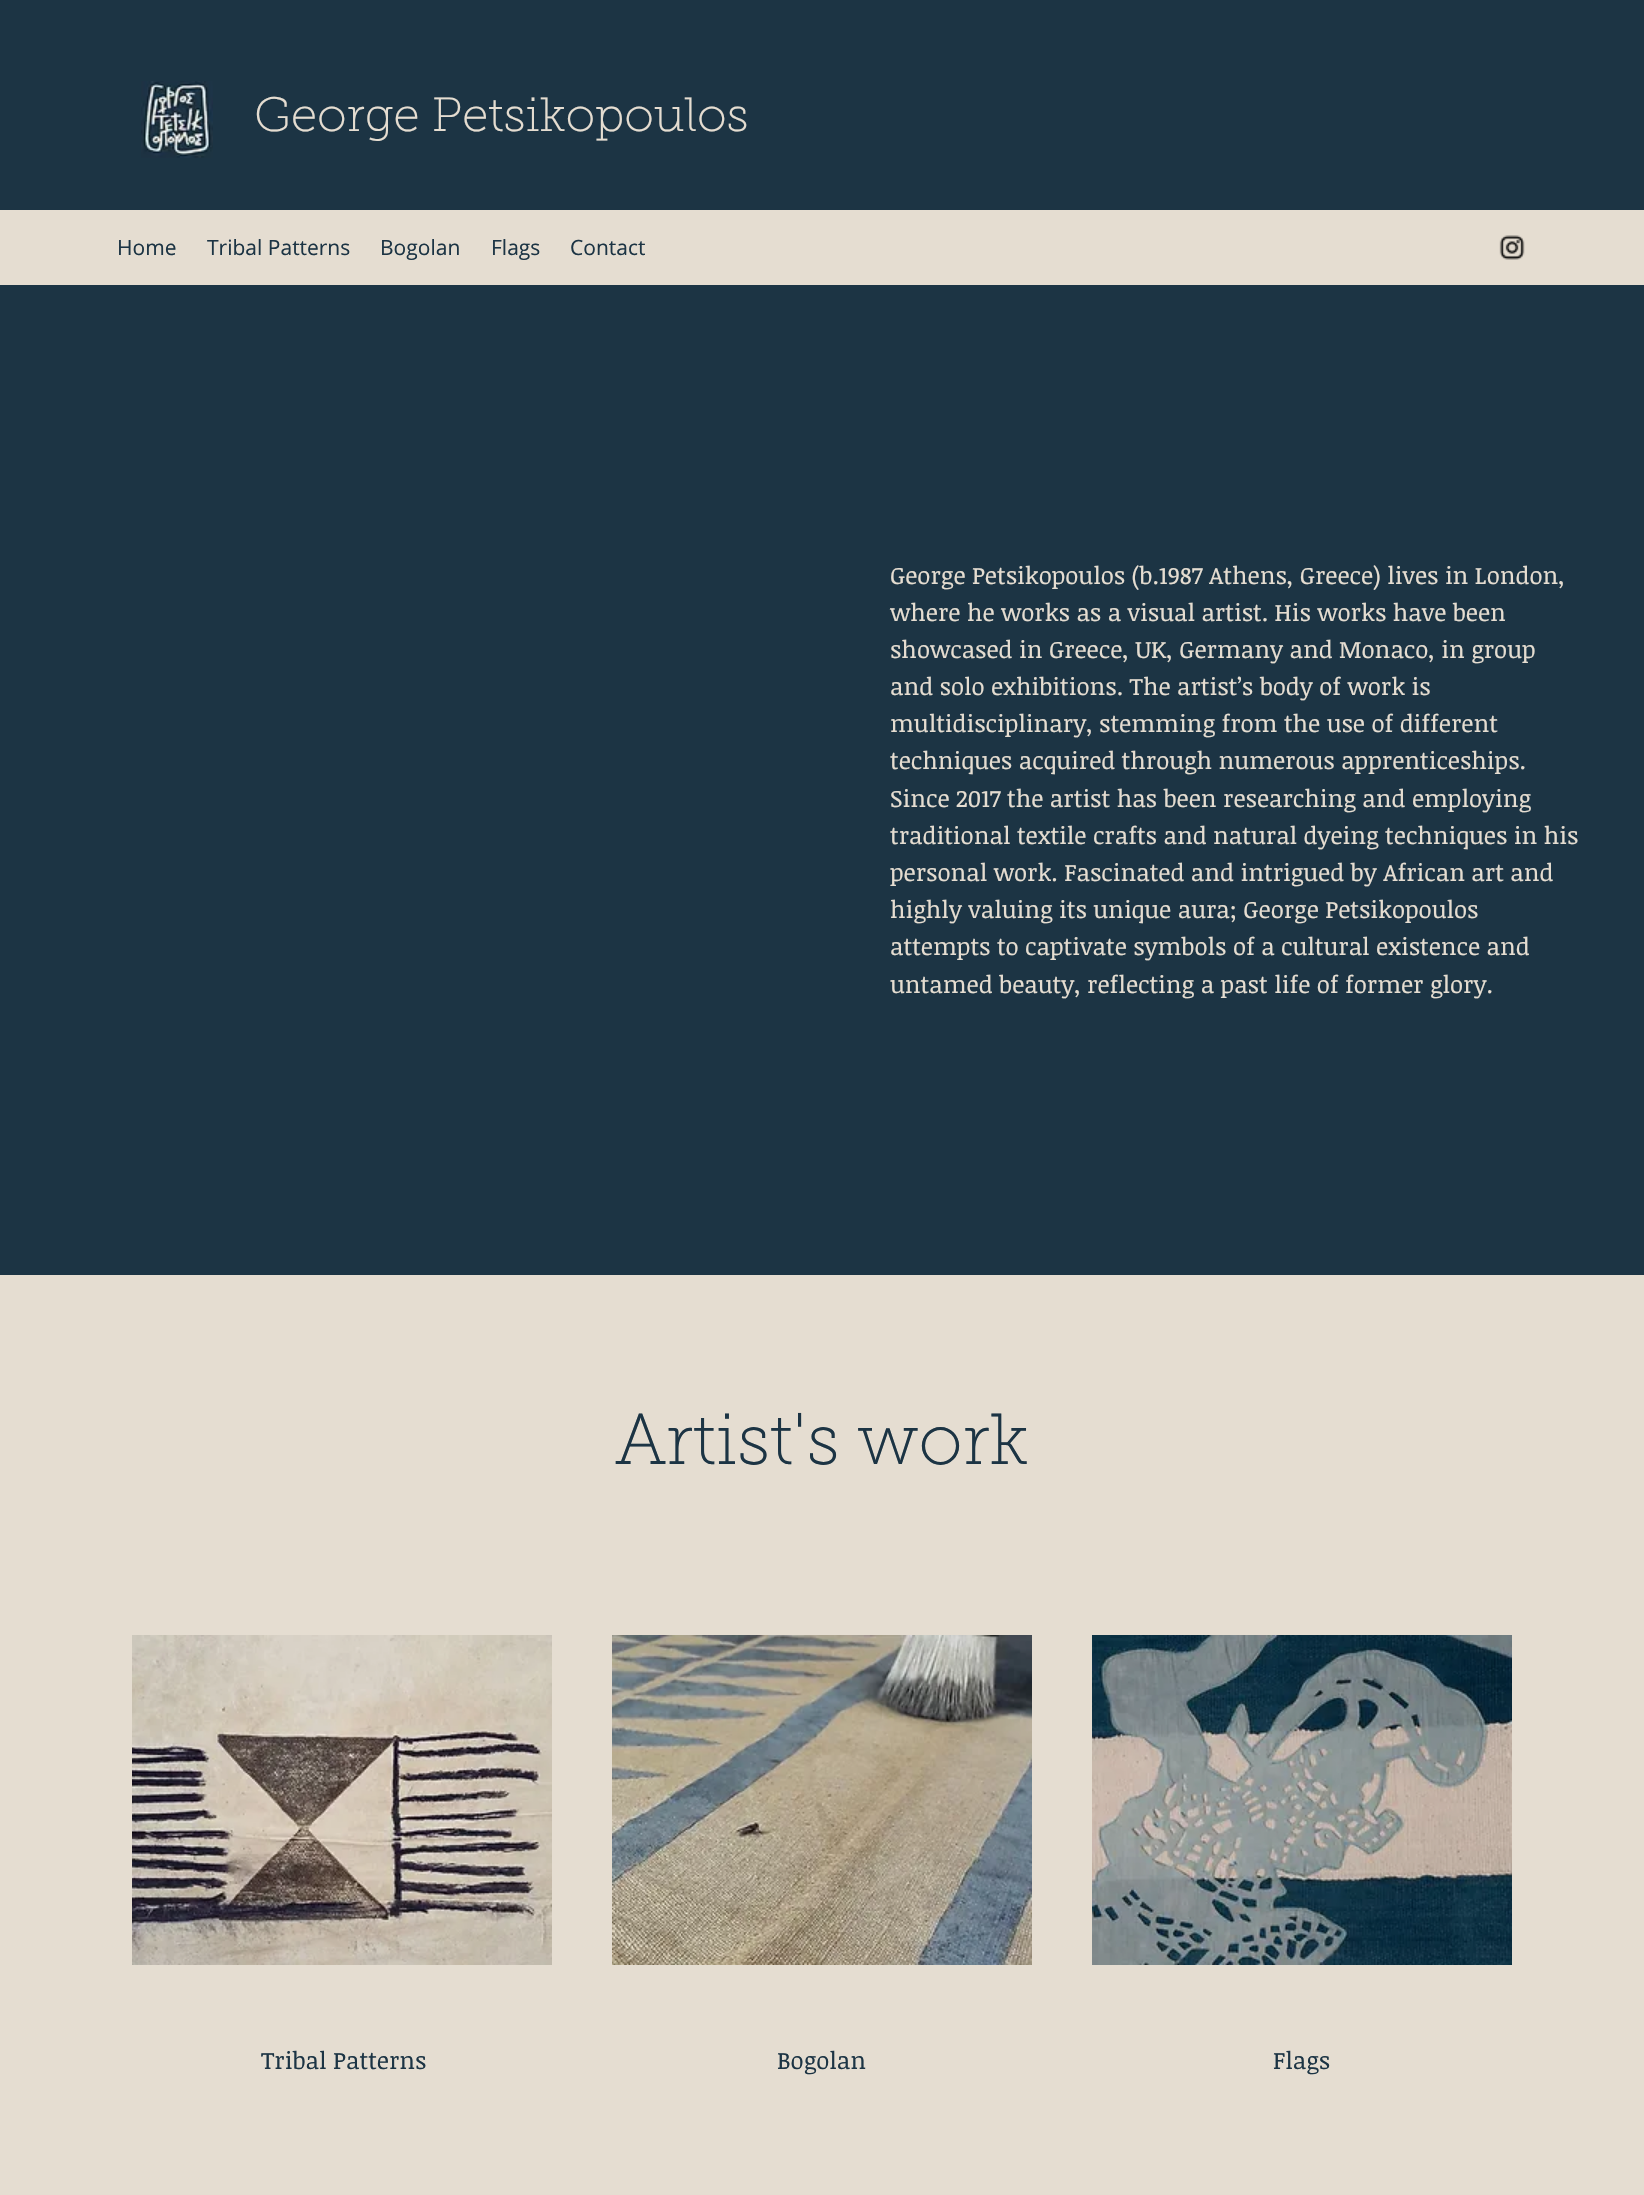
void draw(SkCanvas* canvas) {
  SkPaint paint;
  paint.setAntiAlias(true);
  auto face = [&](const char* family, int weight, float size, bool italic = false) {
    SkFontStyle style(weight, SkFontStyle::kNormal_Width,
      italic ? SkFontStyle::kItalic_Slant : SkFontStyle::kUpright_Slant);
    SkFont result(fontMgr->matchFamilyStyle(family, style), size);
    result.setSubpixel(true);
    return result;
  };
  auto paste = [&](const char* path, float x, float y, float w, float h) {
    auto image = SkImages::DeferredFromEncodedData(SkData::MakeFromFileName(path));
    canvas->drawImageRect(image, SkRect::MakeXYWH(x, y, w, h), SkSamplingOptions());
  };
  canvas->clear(0xffe5ddd1);
  paint.setColor(0xff1c3444);
  canvas->drawRect(SkRect::MakeXYWH(0, 0, 1644, 210), paint);
  paste("img/1.png", 141, 81, 72, 77);
  paste("img/2.png", 1499, 235, 26, 25);
  canvas->drawRect(SkRect::MakeXYWH(0, 285, 1644, 990), paint);
  paste("img/3.png", 132, 1635, 420, 330);
  paste("img/4.png", 612, 1635, 420, 330);
  paste("img/5.png", 1092, 1635, 420, 330);
  auto f0 = face("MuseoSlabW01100", 100, 48);
  paint.setColor(0xffe5ddd1);
  canvas->drawString("George Petsikopoulos", 254, 131, f0, paint);
  auto f1 = face("Open Sans", 400, 21);
  paint.setColor(0xff1c3444);
  {
    const struct { const char* s; float x, y; } items[] = {
      {"Home", 117, 255},
      {"Tribal Patterns", 207, 255},
      {"Bogolan", 380, 255},
      {"Flags", 491, 255},
      {"Contact", 570, 255},
    };
    for (auto [s, x, y] : items) {
      canvas->drawString(s, x, y, f1, paint);
    }
  }
  auto f2 = face("Noticia Text", 400, 24);
  paint.setColor(0xffe5ddd1);
  {
    const struct { const char* s; float x, y; } items[] = {
      {"George Petsikopoulos (b.1987 Athens, Greece) lives in London,", 890, 584},
      {"where he works as a visual artist. His works have been", 890, 621},
      {"showcased in Greece, UK, Germany and Monaco, in group", 890, 658},
      {"and solo exhibitions. The artist’s body of work is", 890, 695},
      {"multidisciplinary, stemming from the use of different", 890, 732},
      {"techniques acquired through numerous apprenticeships.", 890, 769},
      {"Since 2017 the artist has been researching and employing", 890, 807},
      {"traditional textile crafts and natural dyeing techniques in his", 890, 844},
      {"personal work. Fascinated and intrigued by African art and", 890, 881},
      {"highly valuing its unique aura; George Petsikopoulos", 890, 918},
      {"attempts to captivate symbols of a cultural existence and", 890, 955},
      {"untamed beauty, reflecting a past life of former glory.", 890, 993},
    };
    for (auto [s, x, y] : items) {
      canvas->drawString(s, x, y, f2, paint);
    }
  }
  auto f3 = face("MuseoSlabW01100", 100, 72);
  paint.setColor(0xff1c3444);
  canvas->drawString("Artist's work", 615, 1464, f3, paint);
  {
    const struct { const char* s; float x, y; } items[] = {
      {"Tribal Patterns", 261, 2069},
      {"Bogolan", 777, 2069},
      {"Flags", 1273, 2069},
    };
    for (auto [s, x, y] : items) {
      canvas->drawString(s, x, y, f2, paint);
    }
  }
}
